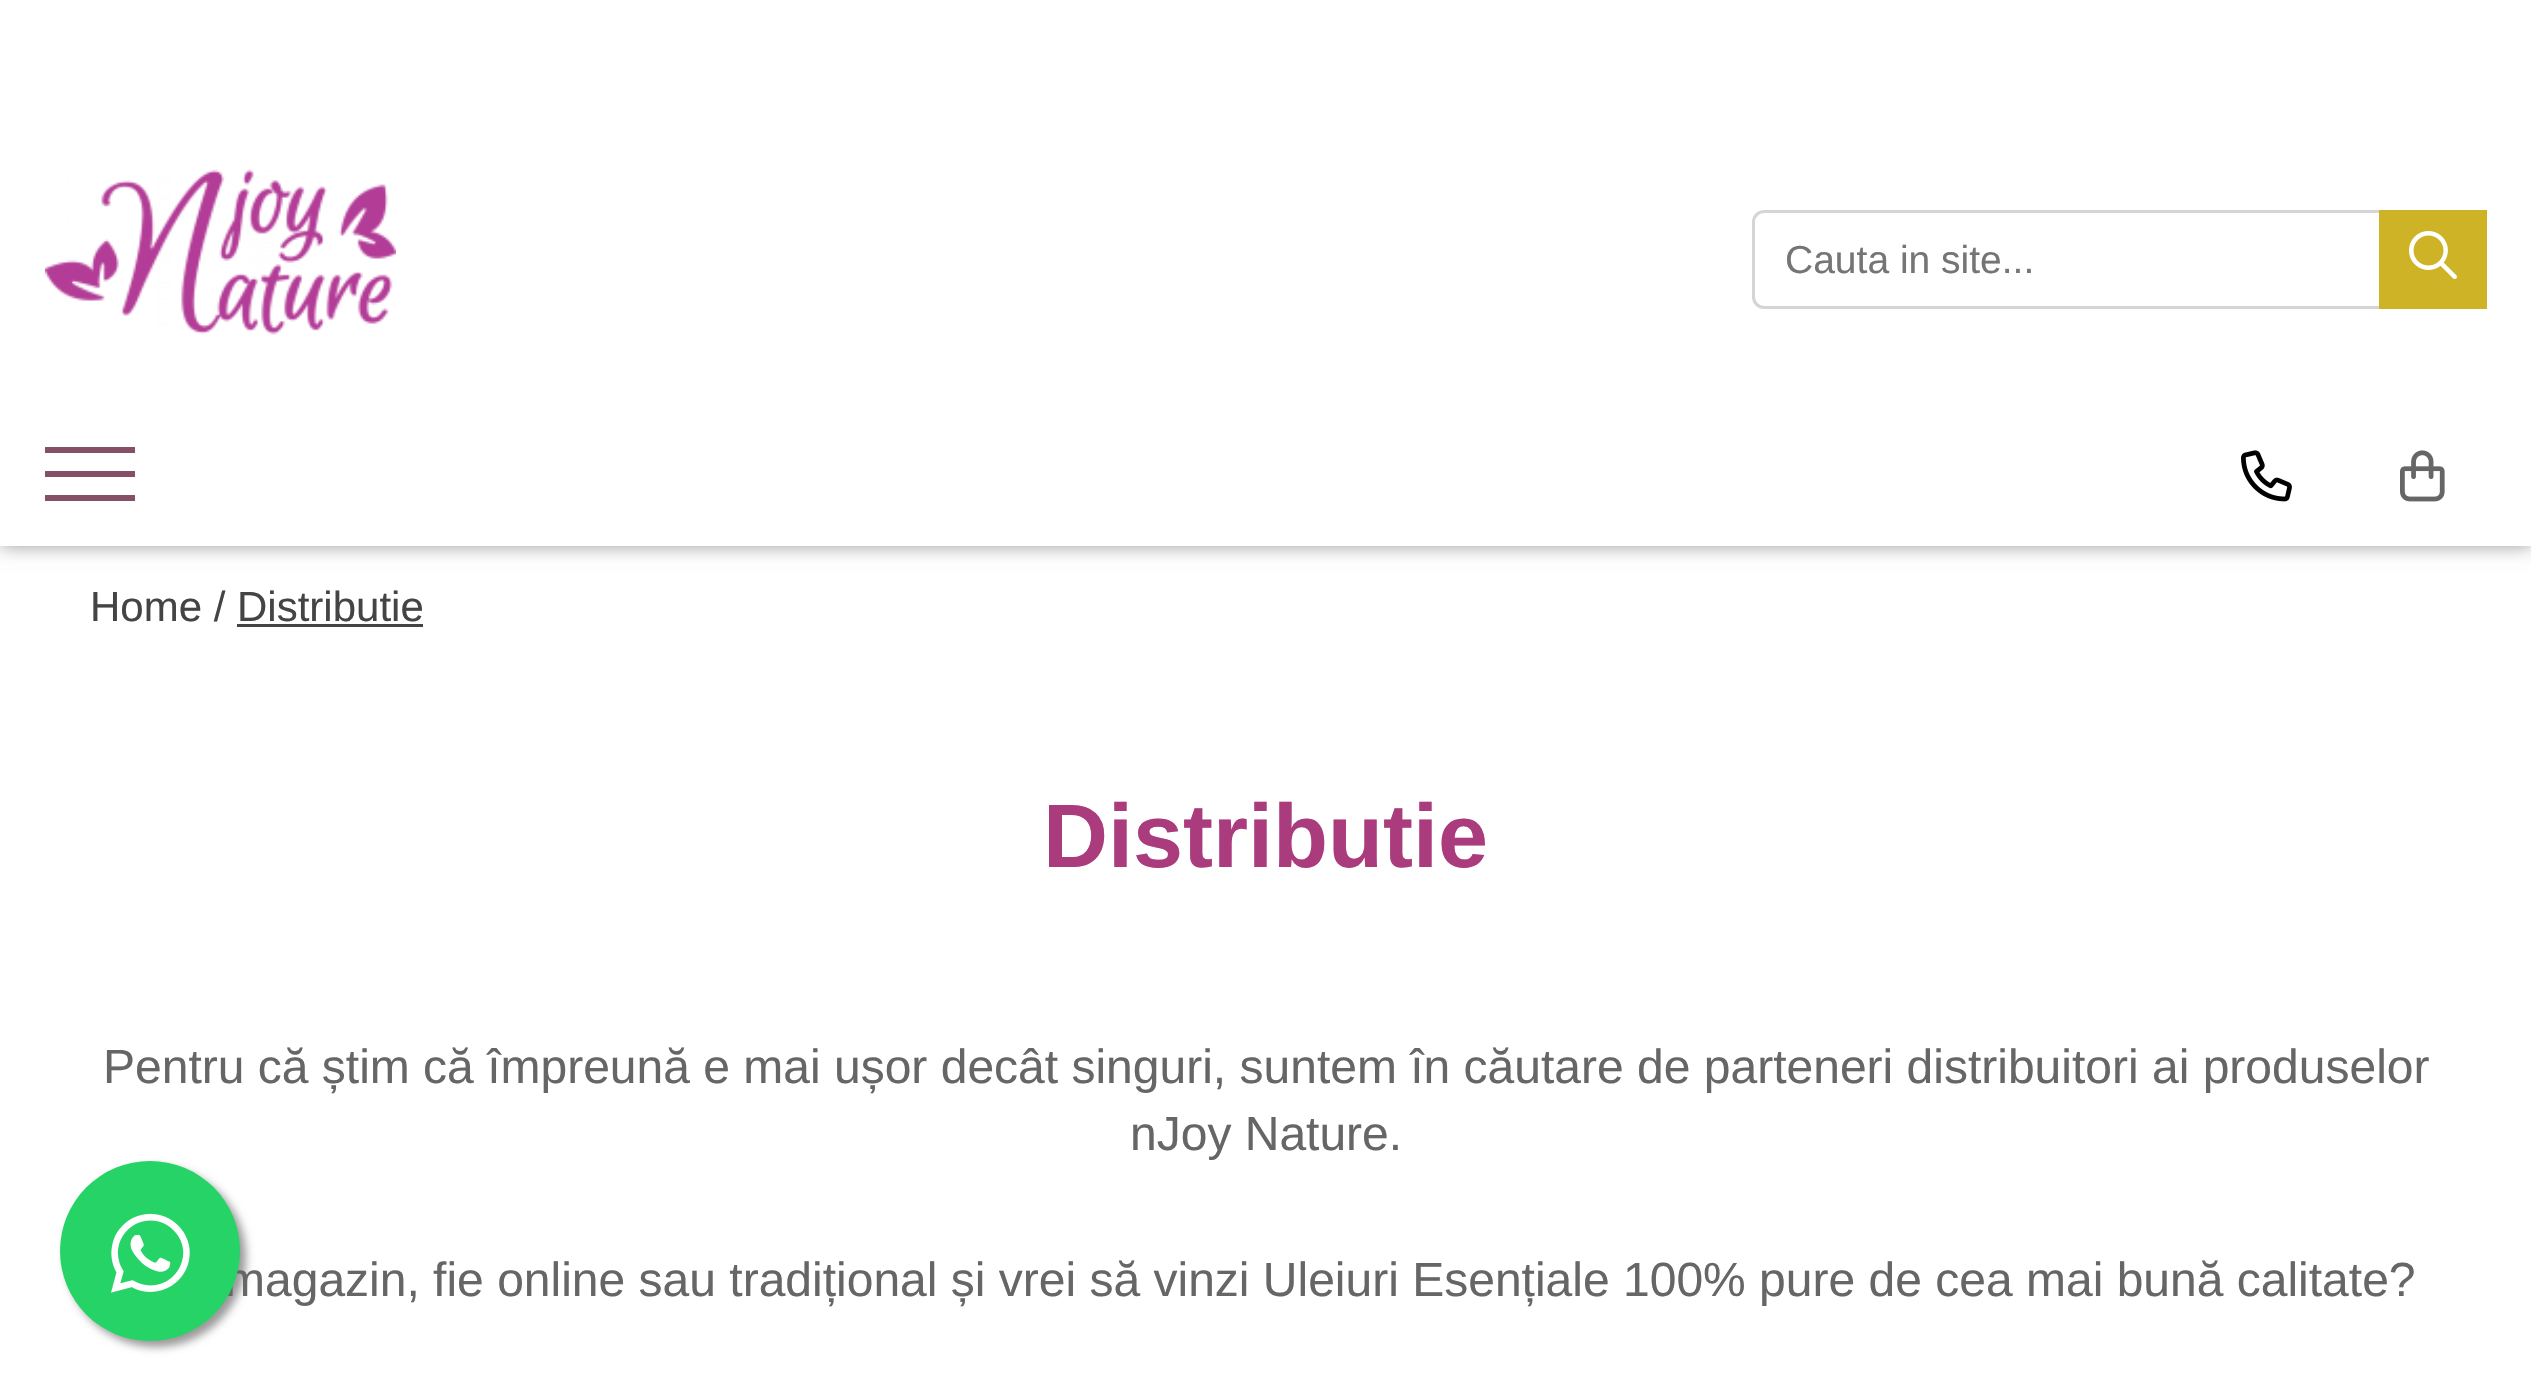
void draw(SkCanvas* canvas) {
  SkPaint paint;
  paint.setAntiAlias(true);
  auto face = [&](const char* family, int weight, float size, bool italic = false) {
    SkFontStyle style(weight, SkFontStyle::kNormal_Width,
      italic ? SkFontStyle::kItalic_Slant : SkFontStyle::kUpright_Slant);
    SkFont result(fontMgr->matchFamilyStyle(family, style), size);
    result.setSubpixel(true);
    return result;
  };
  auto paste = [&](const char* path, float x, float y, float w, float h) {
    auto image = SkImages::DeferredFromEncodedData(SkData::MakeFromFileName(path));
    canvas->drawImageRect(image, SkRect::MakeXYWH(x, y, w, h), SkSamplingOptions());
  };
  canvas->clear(0xffffffff);
  paint.setColor(0x66000000);
  paint.setMaskFilter(SkMaskFilter::MakeBlur(kNormal_SkBlurStyle, 9));
  canvas->drawRect(SkRect::MakeXYWH(0, 0, 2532, 546), paint);
  paint.setMaskFilter(nullptr);
  paint.setColor(0xffffffff);
  canvas->drawRect(SkRect::MakeXYWH(0, 0, 2531, 546), paint);
  paste("img/1.png", 45, 169, 351, 166);
  paint.setStroke(true);
  paint.setStrokeWidth(3);
  paint.setColor(0xffd5d5d5);
  canvas->drawRoundRect(SkRect::MakeXYWH(1753.5f, 211.5f, 732, 96), 10.5f, 10.5f, paint);
  paint.setStroke(false);
  paint.setColor(0xffceb326);
  canvas->drawRect(SkRect::MakeXYWH(2379, 210, 108, 99), paint);
  paste("img/2.png", 2409, 231, 48, 48);
  {
    const struct { float x, y, w, h; SkColor color; } items[] = {
      {45, 471, 90, 6, 0xff855067},
      {45, 447, 90, 6, 0xff855067},
      {45, 495, 90, 6, 0xff855067},
    };
    for (auto [x, y, w, h, color] : items) {
      paint.setColor(color);
      canvas->drawRect(SkRect::MakeXYWH(x, y, w, h), paint);
    }
  }
  paste("img/3.png", 2241, 450, 51, 52);
  paste("img/4.png", 2400, 450, 45, 52);
  paint.setColor(0xff444444);
  canvas->drawRect(SkRect::MakeXYWH(237, 624, 186, 3), paint);
  paint.setColor(0xff999999);
  paint.setMaskFilter(SkMaskFilter::MakeBlur(kNormal_SkBlurStyle, 4.5f));
  canvas->drawRoundRect(SkRect::MakeXYWH(66, 1167, 180, 180), 90, 90, paint);
  paint.setMaskFilter(nullptr);
  auto f0 = face("Liberation Sans", 400, 39);
  paint.setColor(0xff757575);
  canvas->drawString("Cauta in site...", 1785, 273, f0, paint);
  auto f1 = face("Liberation Sans", 400, 42);
  paint.setColor(0xff444444);
  canvas->drawString("Home / Distributie", 90, 621, f1, paint);
  auto f2 = face("Liberation Sans", 700, 90);
  paint.setColor(0xffaa3b7c);
  canvas->drawString("Distributie", 1043, 867, f2, paint);
  auto f3 = face("Liberation Sans", 400, 48);
  paint.setColor(0xff666666);
  {
    const struct { const char* s; float x, y; } items[] = {
      {"Pentru că știm că împreună e mai ușor decât singuri, suntem în căutare de parteneri distribuitori ai produselor", 103, 1083},
      {"nJoy Nature.", 1130, 1150},
      {"magazin, fie online sau tradițional și vrei să vinzi Uleiuri Esențiale 100% pure de cea mai bună calitate?", 225, 1296},
    };
    for (auto [s, x, y] : items) {
      canvas->drawString(s, x, y, f3, paint);
    }
  }
  paint.setColor(0xff25d366);
  canvas->drawCircle(150, 1251, 90, paint);
  paste("img/5.png", 111, 1213, 79, 80);
}
